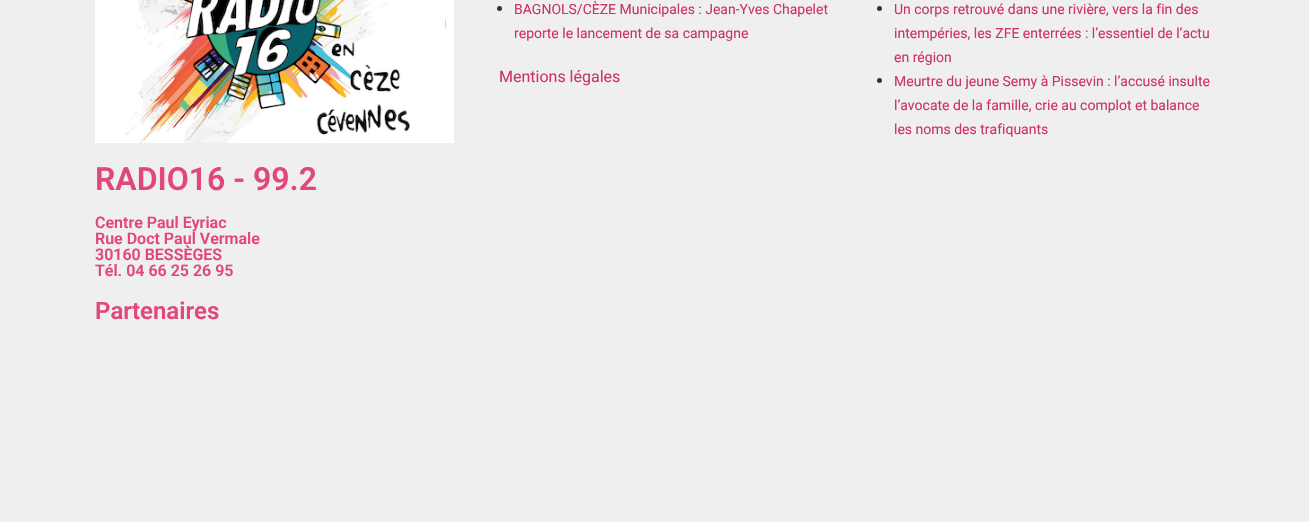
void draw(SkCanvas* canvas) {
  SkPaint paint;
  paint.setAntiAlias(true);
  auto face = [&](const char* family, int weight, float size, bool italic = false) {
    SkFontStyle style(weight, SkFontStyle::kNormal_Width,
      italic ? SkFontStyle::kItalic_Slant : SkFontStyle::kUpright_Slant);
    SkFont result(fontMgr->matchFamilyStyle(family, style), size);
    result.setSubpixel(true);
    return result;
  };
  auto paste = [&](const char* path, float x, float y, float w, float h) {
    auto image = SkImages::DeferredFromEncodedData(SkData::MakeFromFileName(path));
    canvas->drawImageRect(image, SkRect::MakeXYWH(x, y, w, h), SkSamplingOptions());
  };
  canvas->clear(0xffefefef);
  paint.setColor(0xff333333);
  canvas->drawCircle(499.5f, 8.5f, 2.5f, paint);
  canvas->drawCircle(879.5f, 8.5f, 2.5f, paint);
  canvas->drawCircle(879.5f, 80.5f, 2.5f, paint);
  paste("img/1.png", 95, 0, 359, 143);
  auto f0 = face("Roboto", 400, 14);
  paint.setColor(0xffcc3366);
  canvas->drawString("BAGNOLS/CÈZE Municipales : Jean-Yves Chapelet", 514, 14, f0, paint);
  canvas->drawString("reporte le lancement de sa campagne", 514, 38, f0, paint);
  auto f1 = face("Roboto", 400, 16);
  canvas->drawString("Mentions légales", 499, 82, f1, paint);
  {
    const struct { const char* s; float x, y; } items[] = {
      {"Un corps retrouvé dans une rivière, vers la fin des", 894, 14},
      {"intempéries, les ZFE enterrées : l’essentiel de l’actu", 894, 38},
      {"en région", 894, 62},
      {"Meurtre du jeune Semy à Pissevin : l’accusé insulte", 894, 86},
      {"l’avocate de la famille, crie au complot et balance", 894, 110},
      {"les noms des trafiquants", 894, 134},
    };
    for (auto [s, x, y] : items) {
      canvas->drawString(s, x, y, f0, paint);
    }
  }
  auto f2 = face("Roboto", 600, 32);
  paint.setColor(0xffe2467a);
  canvas->drawString("RADIO16 - 99.2", 95, 190, f2, paint);
  auto f3 = face("Roboto", 600, 16);
  {
    const struct { const char* s; float x, y; } items[] = {
      {"Centre Paul Eyriac", 95, 228},
      {"Rue Doct Paul Vermale", 95, 244},
      {"30160 BESSÈGES", 95, 260},
      {"Tél. 04 66 25 26 95", 95, 276},
    };
    for (auto [s, x, y] : items) {
      canvas->drawString(s, x, y, f3, paint);
    }
  }
  auto f4 = face("Roboto", 600, 24);
  canvas->drawString("Partenaires", 95, 319, f4, paint);
}
